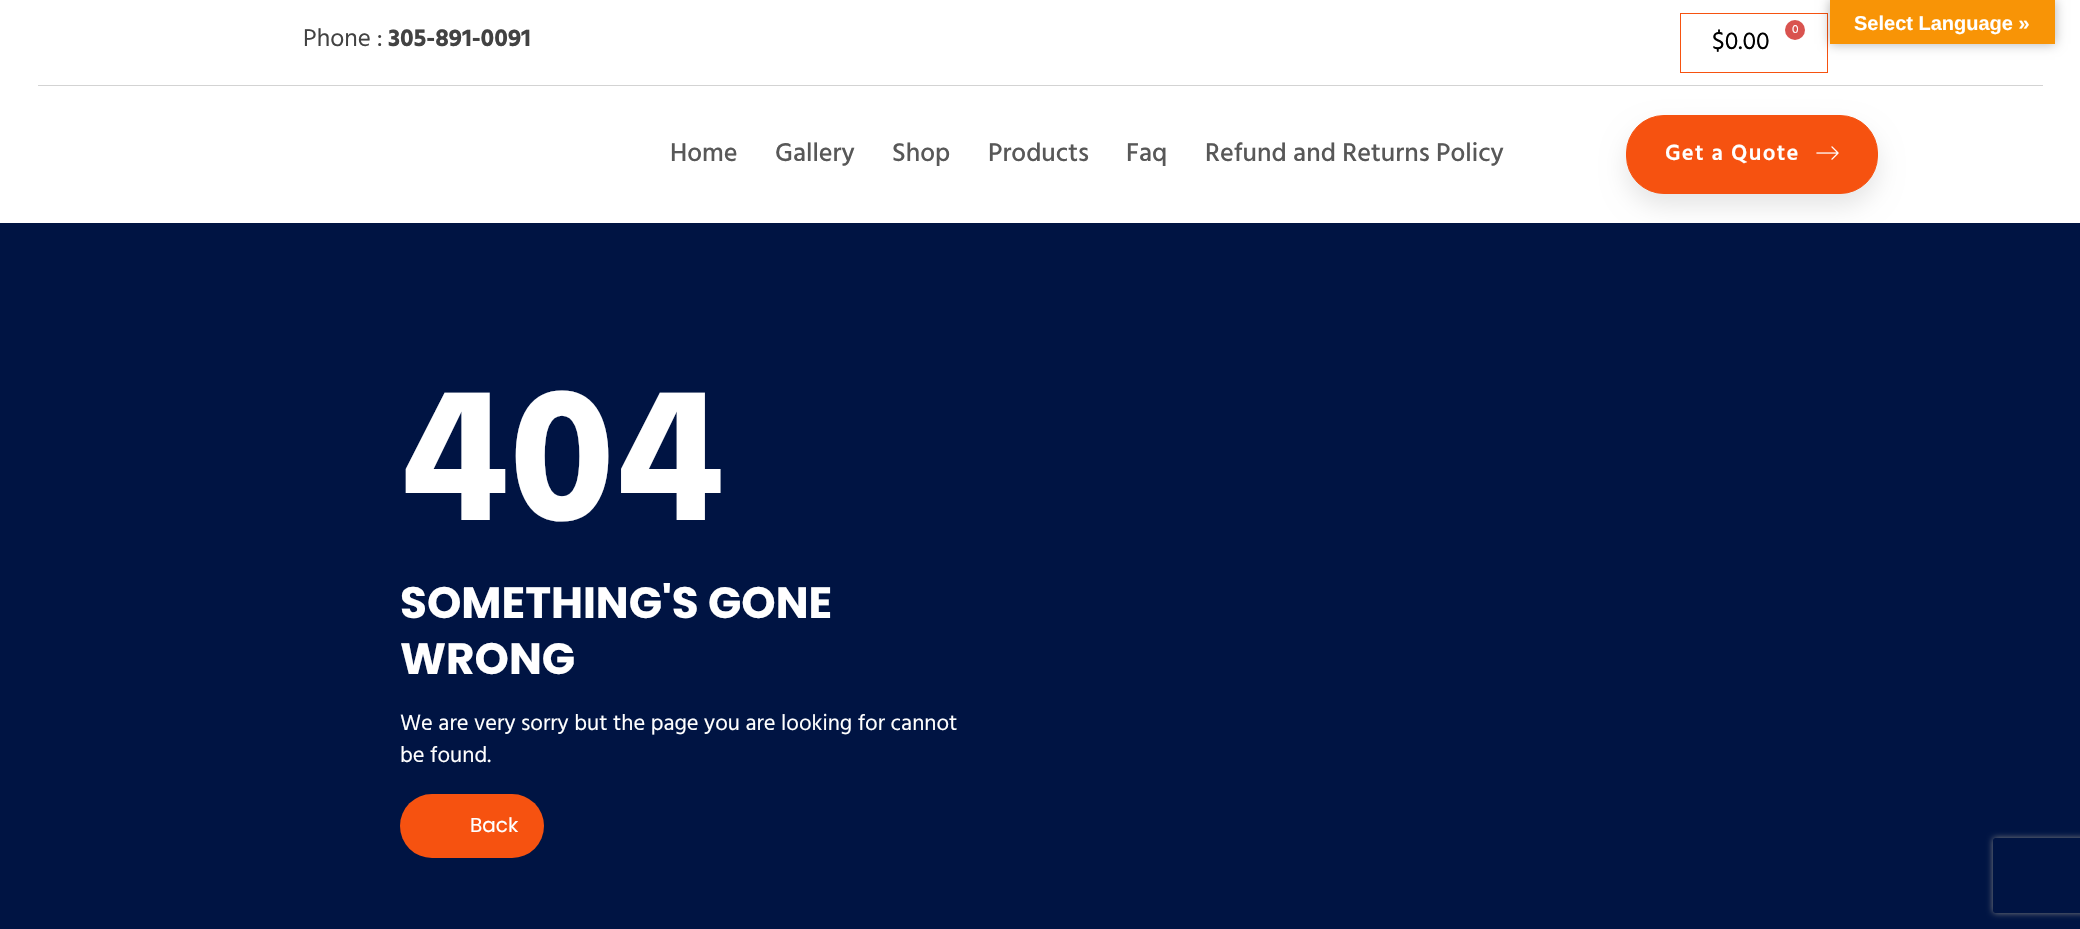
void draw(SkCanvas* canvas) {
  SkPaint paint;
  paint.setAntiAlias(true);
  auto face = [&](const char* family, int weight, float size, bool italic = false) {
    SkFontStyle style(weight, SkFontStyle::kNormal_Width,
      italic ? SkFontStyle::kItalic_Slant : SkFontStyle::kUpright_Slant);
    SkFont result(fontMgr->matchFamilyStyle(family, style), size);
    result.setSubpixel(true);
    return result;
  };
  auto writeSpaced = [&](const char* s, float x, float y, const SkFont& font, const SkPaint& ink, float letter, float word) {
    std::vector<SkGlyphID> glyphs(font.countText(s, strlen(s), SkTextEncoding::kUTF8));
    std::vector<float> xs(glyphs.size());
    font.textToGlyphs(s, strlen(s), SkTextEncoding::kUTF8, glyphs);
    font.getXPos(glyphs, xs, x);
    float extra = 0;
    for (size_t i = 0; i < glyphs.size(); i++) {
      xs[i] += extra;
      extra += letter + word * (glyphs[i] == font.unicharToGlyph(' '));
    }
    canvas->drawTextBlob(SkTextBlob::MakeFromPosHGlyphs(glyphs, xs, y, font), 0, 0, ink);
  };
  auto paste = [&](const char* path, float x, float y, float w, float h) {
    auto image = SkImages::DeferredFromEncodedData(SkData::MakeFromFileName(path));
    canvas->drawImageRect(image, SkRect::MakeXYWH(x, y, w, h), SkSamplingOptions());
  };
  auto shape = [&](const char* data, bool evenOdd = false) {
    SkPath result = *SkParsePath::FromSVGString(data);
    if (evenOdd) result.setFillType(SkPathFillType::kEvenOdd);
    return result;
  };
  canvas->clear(0xffffffff);
  paint.setColor(0xffd3d3d3);
  canvas->drawRect(SkRect::MakeXYWH(38, 85, 2005, 1), paint);
  paint.setStroke(true);
  paint.setStrokeWidth(1);
  paint.setColor(0xfff65210);
  canvas->drawRect(SkRect::MakeXYWH(1680.5f, 13.5f, 147, 59), paint);
  paint.setStroke(false);
  paint.setColor(0xffd9534f);
  canvas->drawCircle(1795, 30, 10, paint);
  paint.setColor(0x1a000000);
  paint.setMaskFilter(SkMaskFilter::MakeBlur(kNormal_SkBlurStyle, 12.5f));
  canvas->drawRoundRect(SkRect::MakeXYWH(1626, 128, 252, 78), 38, 38, paint);
  paint.setMaskFilter(nullptr);
  paint.setColor(0xfff65210);
  canvas->drawRoundRect(SkRect::MakeXYWH(1626.5f, 115.5f, 251, 78), 37.5f, 37.5f, paint);
  paint.setStroke(true);
  canvas->drawRoundRect(SkRect::MakeXYWH(1626.5f, 115.5f, 251, 78), 37.5f, 37.5f, paint);
  paste("img/1.png", 1816, 146, 23, 14);
  paint.setStroke(false);
  paint.setColor(0xff001443);
  canvas->drawRect(SkRect::MakeXYWH(0, 223, 2080, 706), paint);
  paint.setColor(0xfff65210);
  canvas->drawRoundRect(SkRect::MakeXYWH(400, 794, 144, 64), 32, 32, paint);
  paint.setColor(0x4d000000);
  paint.setMaskFilter(SkMaskFilter::MakeBlur(kNormal_SkBlurStyle, 5.5f));
  canvas->drawRect(SkRect::MakeXYWH(1830, 0, 225, 44), paint);
  paint.setMaskFilter(nullptr);
  paint.setColor(0xfff89406);
  canvas->drawRect(SkRect::MakeXYWH(1830, 0, 225, 44), paint);
  canvas->save();
  canvas->clipPath(shape("M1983 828H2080V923H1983ZM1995.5 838H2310.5C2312 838 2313 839 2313 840.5V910.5C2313 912 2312 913 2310.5 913H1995.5C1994 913 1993 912 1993 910.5V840.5C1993 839 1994 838 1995.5 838Z", true), true);
  paint.setColor(0xff808080);
  paint.setMaskFilter(SkMaskFilter::MakeBlur(kNormal_SkBlurStyle, 3));
  canvas->drawRoundRect(SkRect::MakeXYWH(1993, 838, 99, 75), 2.5f, 2.5f, paint);
  paint.setMaskFilter(nullptr);
  canvas->restore();
  auto f0 = face("Hind", 400, 25);
  paint.setColor(0xff424242);
  canvas->drawString("Phone :", 303, 46, f0, paint);
  auto f1 = face("Hind", 700, 25);
  canvas->drawString("305-891-0091", 388, 46, f1, paint);
  paint.setColor(0xff000000);
  canvas->drawString("$0.00", 1712, 49, f0, paint);
  auto f2 = face("Hind", 400, 12);
  paint.setColor(0xffffffff);
  canvas->drawString("0", 1792, 33, f2, paint);
  auto f3 = face("Hind", 500, 26.25f);
  paint.setColor(0xff585858);
  {
    const struct { const char* s; float x, y; } items[] = {
      {"Home", 670, 161},
      {"Gallery", 775, 161},
      {"Shop", 892, 161},
      {"Products", 988, 161},
      {"Faq", 1126, 161},
      {"Refund and Returns Policy", 1205, 161},
    };
    for (auto [s, x, y] : items) {
      canvas->drawString(s, x, y, f3, paint);
    }
  }
  auto f4 = face("Hind", 600, 22.5f);
  paint.setColor(0xffffffff);
  writeSpaced("Get a Quote", 1665, 160, f4, paint, 1.25f, 0);
  auto f5 = face("Hind", 700, 194);
  canvas->drawString("404", 400, 520, f5, paint);
  auto f6 = face("Poppins", 700, 43.75f);
  canvas->drawString("SOMETHING'S GONE", 400, 618, f6, paint);
  canvas->drawString("WRONG", 400, 674, f6, paint);
  auto f7 = face("Hind", 400, 22.5f);
  canvas->drawString("We are very sorry but the page you are looking for cannot", 400, 730, f7, paint);
  canvas->drawString("be found.", 400, 762, f7, paint);
  auto f8 = face("Poppins", 400, 20);
  canvas->drawString("Back", 470, 832, f8, paint);
  auto f9 = face("Liberation Sans", 700, 20);
  canvas->drawString("Select Language »", 1854, 30, f9, paint);
}
